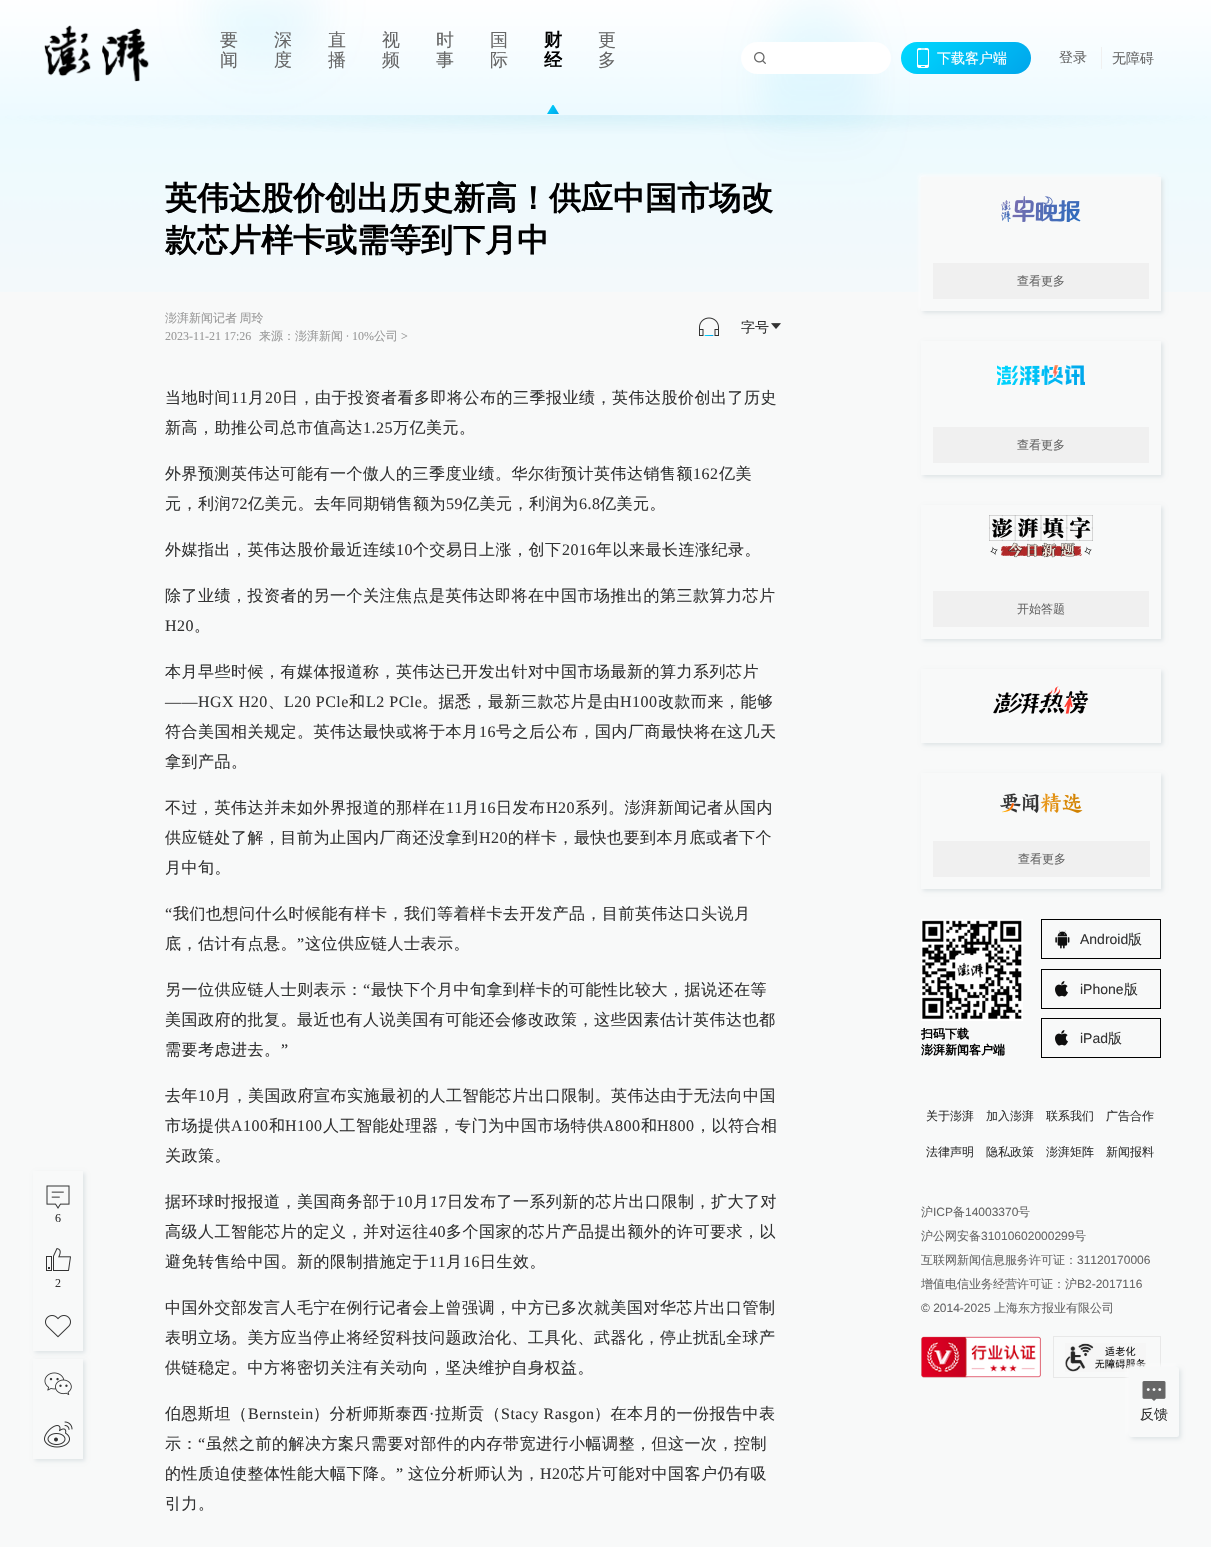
void draw(SkCanvas* canvas) {
  SkPaint paint;
  paint.setAntiAlias(true);
  auto face = [&](const char* family, int weight, float size, bool italic = false) {
    SkFontStyle style(weight, SkFontStyle::kNormal_Width,
      italic ? SkFontStyle::kItalic_Slant : SkFontStyle::kUpright_Slant);
    SkFont result(fontMgr->matchFamilyStyle(family, style), size);
    result.setSubpixel(true);
    return result;
  };
  auto writeSpaced = [&](const char* s, float x, float y, const SkFont& font, const SkPaint& ink, float letter, float word) {
    std::vector<SkGlyphID> glyphs(font.countText(s, strlen(s), SkTextEncoding::kUTF8));
    std::vector<float> xs(glyphs.size());
    font.textToGlyphs(s, strlen(s), SkTextEncoding::kUTF8, glyphs);
    font.getXPos(glyphs, xs, x);
    float extra = 0;
    for (size_t i = 0; i < glyphs.size(); i++) {
      xs[i] += extra;
      extra += letter + word * (glyphs[i] == font.unicharToGlyph(' '));
    }
    canvas->drawTextBlob(SkTextBlob::MakeFromPosHGlyphs(glyphs, xs, y, font), 0, 0, ink);
  };
  auto paste = [&](const char* path, float x, float y, float w, float h) {
    auto image = SkImages::DeferredFromEncodedData(SkData::MakeFromFileName(path));
    canvas->drawImageRect(image, SkRect::MakeXYWH(x, y, w, h), SkSamplingOptions());
  };
  auto shape = [&](const char* data, bool evenOdd = false) {
    SkPath result = *SkParsePath::FromSVGString(data);
    if (evenOdd) result.setFillType(SkPathFillType::kEvenOdd);
    return result;
  };
  canvas->clear(0xfff8f9f9);
  paste("img/1.png", 0, 0, 1211, 292);
  paste("img/2.png", 44, 25, 105, 57);
  paste("img/3.png", 547, 105, 12, 9);
  paint.setColor(0xffffffff);
  canvas->drawRoundRect(SkRect::MakeXYWH(741, 42, 150, 32), 16, 16, paint);
  paste("img/4.png", 754, 52, 12, 12);
  {
    const SkColor colors[] = {0xff00d9ff, 0xff00a5eb};
    const float stops[] = {0, 1};
    const SkPoint ends[] = {{926, 18}, {1007, 99}};
    paint.setShader(SkGradientShader::MakeLinear(ends, colors, stops, 2, SkTileMode::kClamp));
    paint.setAlpha(255);
  }
  canvas->drawRoundRect(SkRect::MakeXYWH(901, 42, 130, 32), 16, 16, paint);
  paste("img/5.png", 917, 48, 12, 20);
  paint.setShader(nullptr);
  paint.setColor(0xfff0f0f0);
  canvas->drawRect(SkRect::MakeXYWH(1101, 47, 1, 22), paint);
  canvas->save();
  canvas->clipPath(shape("M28 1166H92V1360H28ZM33 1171H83V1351H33Z", true), true);
  paint.setColor(0xffdee4e6);
  paint.setMaskFilter(SkMaskFilter::MakeBlur(kNormal_SkBlurStyle, 2));
  canvas->drawRect(SkRect::MakeXYWH(35, 1173, 50, 180), paint);
  paint.setMaskFilter(nullptr);
  canvas->restore();
  paste("img/6.png", 46, 1185, 24, 24);
  paste("img/7.png", 46, 1248, 25, 23);
  paste("img/8.png", 45, 1315, 26, 23);
  canvas->save();
  canvas->clipPath(shape("M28 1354H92V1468H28ZM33 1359H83V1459H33Z", true), true);
  paint.setMaskFilter(SkMaskFilter::MakeBlur(kNormal_SkBlurStyle, 2));
  canvas->drawRect(SkRect::MakeXYWH(35, 1361, 50, 100), paint);
  paint.setMaskFilter(nullptr);
  canvas->restore();
  paste("img/9.png", 44, 1372, 28, 23);
  paste("img/10.png", 44, 1421, 29, 27);
  paste("img/11.png", 699, 317, 20, 19);
  paste("img/12.png", 771, 323, 10, 6);
  paint.setColor(0xffffffff);
  paint.setMaskFilter(SkMaskFilter::MakeBlur(kNormal_SkBlurStyle, 2));
  canvas->drawRect(SkRect::MakeXYWH(919, 175, 240, 134), paint);
  paint.setMaskFilter(nullptr);
  paint.setColor(0xffdee4e6);
  paint.setMaskFilter(SkMaskFilter::MakeBlur(kNormal_SkBlurStyle, 2));
  canvas->drawRect(SkRect::MakeXYWH(923, 179, 240, 134), paint);
  paint.setMaskFilter(nullptr);
  paint.setColor(0xfff8f9f9);
  canvas->drawRect(SkRect::MakeXYWH(921, 177, 240, 134), paint);
  paste("img/13.png", 1001, 196, 80, 26);
  paint.setColor(0xfff0f0f0);
  canvas->drawRect(SkRect::MakeXYWH(933, 263, 216, 36), paint);
  canvas->save();
  canvas->clipPath(shape("M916 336H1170V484H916ZM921 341H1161V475H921Z", true), true);
  paint.setColor(0xffdee4e6);
  paint.setMaskFilter(SkMaskFilter::MakeBlur(kNormal_SkBlurStyle, 2));
  canvas->drawRect(SkRect::MakeXYWH(923, 343, 240, 134), paint);
  paint.setMaskFilter(nullptr);
  canvas->restore();
  paste("img/14.png", 997, 365, 88, 20);
  paint.setColor(0xfff0f0f0);
  canvas->drawRect(SkRect::MakeXYWH(933, 427, 216, 36), paint);
  canvas->save();
  canvas->clipPath(shape("M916 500H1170V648H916ZM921 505H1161V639H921Z", true), true);
  paint.setColor(0xffdee4e6);
  paint.setMaskFilter(SkMaskFilter::MakeBlur(kNormal_SkBlurStyle, 2));
  canvas->drawRect(SkRect::MakeXYWH(923, 507, 240, 134), paint);
  paint.setMaskFilter(nullptr);
  canvas->restore();
  paste("img/15.png", 989, 515, 104, 43);
  paint.setColor(0xfff0f0f0);
  canvas->drawRect(SkRect::MakeXYWH(933, 591, 216, 36), paint);
  canvas->save();
  canvas->clipPath(shape("M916 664H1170V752H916ZM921 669H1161V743H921Z", true), true);
  paint.setColor(0xffdee4e6);
  paint.setMaskFilter(SkMaskFilter::MakeBlur(kNormal_SkBlurStyle, 2));
  canvas->drawRect(SkRect::MakeXYWH(923, 671, 240, 74), paint);
  paint.setMaskFilter(nullptr);
  canvas->restore();
  paste("img/16.png", 993, 686, 96, 28);
  canvas->save();
  canvas->clipPath(shape("M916 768H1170V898H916ZM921 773H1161V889H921Z", true), true);
  paint.setMaskFilter(SkMaskFilter::MakeBlur(kNormal_SkBlurStyle, 2));
  canvas->drawRect(SkRect::MakeXYWH(923, 775, 240, 116), paint);
  paint.setMaskFilter(nullptr);
  canvas->restore();
  paste("img/17.png", 1000, 793, 83, 20);
  paint.setColor(0xfff0f0f0);
  canvas->drawRect(SkRect::MakeXYWH(933, 841, 217, 36), paint);
  paste("img/18.png", 921, 919, 102, 102);
  paint.setStroke(true);
  paint.setStrokeWidth(1);
  paint.setColor(0xff000000);
  canvas->drawRect(SkRect::MakeXYWH(1041.5f, 919.5f, 119, 39), paint);
  paste("img/19.png", 1055, 930, 15, 19);
  canvas->drawRect(SkRect::MakeXYWH(1041.5f, 969.5f, 119, 39), paint);
  paste("img/20.png", 1055, 981, 13, 16);
  canvas->drawRect(SkRect::MakeXYWH(1041.5f, 1018.5f, 119, 39), paint);
  paste("img/20.png", 1055, 1030, 13, 16);
  paste("img/21.png", 921, 1336, 120, 42);
  paint.setColor(0xffe8e8e8);
  canvas->drawRect(SkRect::MakeXYWH(1053.5f, 1336.5f, 107, 41), paint);
  paste("img/22.png", 1065, 1343, 81, 29);
  paint.setStroke(false);
  paint.setColor(0xffffffff);
  paint.setMaskFilter(SkMaskFilter::MakeBlur(kNormal_SkBlurStyle, 2));
  canvas->drawRoundRect(SkRect::MakeXYWH(1127, 1365, 50, 70), 2, 2, paint);
  paint.setMaskFilter(nullptr);
  paint.setColor(0xffdee4e6);
  paint.setMaskFilter(SkMaskFilter::MakeBlur(kNormal_SkBlurStyle, 2));
  canvas->drawRoundRect(SkRect::MakeXYWH(1131, 1369, 50, 70), 2, 2, paint);
  paint.setMaskFilter(nullptr);
  paint.setColor(0xfff8f9f9);
  canvas->drawRoundRect(SkRect::MakeXYWH(1129, 1367, 50, 70), 2, 2, paint);
  paste("img/23.png", 1142, 1381, 24, 20);
  auto f0 = face("WenQuanYi Zen Hei", 500, 18);
  paint.setColor(0xff666666);
  {
    const struct { const char* s; float x, y; } items[] = {
      {"要", 220, 46},
      {"闻", 220, 66},
      {"深", 274, 46},
      {"度", 274, 66},
      {"直", 328, 46},
      {"播", 328, 66},
      {"视", 382, 46},
      {"频", 382, 66},
      {"时", 436, 46},
      {"事", 436, 66},
      {"国", 490, 46},
      {"际", 490, 66},
    };
    for (auto [s, x, y] : items) {
      canvas->drawString(s, x, y, f0, paint);
    }
  }
  auto f1 = face("WenQuanYi Zen Hei", 700, 18);
  paint.setColor(0xff000000);
  canvas->drawString("财", 544, 46, f1, paint);
  canvas->drawString("经", 544, 66, f1, paint);
  paint.setColor(0xff666666);
  canvas->drawString("更", 598, 46, f0, paint);
  canvas->drawString("多", 598, 66, f0, paint);
  auto f2 = face("WenQuanYi Zen Hei", 500, 14);
  paint.setColor(0xffffffff);
  canvas->drawString("下载客户端", 937, 63, f2, paint);
  paint.setColor(0xff666666);
  canvas->drawString("登录", 1059, 62, f2, paint);
  canvas->drawString("无障碍", 1112, 63, f2, paint);
  auto f3 = face("Liberation Serif", 400, 12);
  paint.setColor(0xff333333);
  canvas->drawString("6", 55, 1222, f3, paint);
  canvas->drawString("2", 55, 1287, f3, paint);
  auto f4 = face("WenQuanYi Zen Hei", 700, 32);
  paint.setColor(0xff000000);
  canvas->drawString("英伟达股价创出历史新高！供应中国市场改", 165, 209, f4, paint);
  canvas->drawString("款芯片样卡或需等到下月中", 165, 251, f4, paint);
  auto f5 = face("WenQuanYi Zen Hei", 500, 12);
  paint.setColor(0xff999999);
  writeSpaced("澎湃新闻记者 周玲", 165, 322, f5, paint, 0, -1);
  canvas->drawString("2023-11-21 17:26", 165, 340, f3, paint);
  canvas->drawString("来源：澎湃新闻", 259, 340, f5, paint);
  canvas->drawString("∙ 10%", 346, 340, f3, paint);
  canvas->drawString("公司", 374, 340, f5, paint);
  canvas->drawString(">", 401, 340, f3, paint);
  paint.setColor(0xff333333);
  canvas->drawString("字号", 741, 332, f2, paint);
  auto f6 = face("WenQuanYi Zen Hei", 500, 16);
  writeSpaced("当地时间", 165, 403, f6, paint, 0.5f, 0);
  auto f7 = face("Liberation Serif", 400, 16);
  writeSpaced("11", 231, 403, f7, paint, 0.5f, 0);
  writeSpaced("月", 248, 403, f6, paint, 0.5f, 0);
  writeSpaced("20", 265, 403, f7, paint, 0.5f, 0);
  writeSpaced("日，由于投资者看多即将公布的三季报业绩，英伟达股价创出了历史", 282, 403, f6, paint, 0.5f, 0);
  writeSpaced("新高，助推公司总市值高达", 165, 433, f6, paint, 0.5f, 0);
  writeSpaced("1.25", 363, 433, f7, paint, 0.5f, 0);
  writeSpaced("万亿美元。", 393, 433, f6, paint, 0.5f, 0);
  writeSpaced("外界预测英伟达可能有一个傲人的三季度业绩。华尔街预计英伟达销售额", 165, 479, f6, paint, 0.5f, 0);
  writeSpaced("162", 693, 479, f7, paint, 0.5f, 0);
  writeSpaced("亿美", 719, 479, f6, paint, 0.5f, 0);
  writeSpaced("元，利润", 165, 509, f6, paint, 0.5f, 0);
  writeSpaced("72", 231, 509, f7, paint, 0.5f, 0);
  writeSpaced("亿美元。去年同期销售额为", 248, 509, f6, paint, 0.5f, 0);
  writeSpaced("59", 446, 509, f7, paint, 0.5f, 0);
  writeSpaced("亿美元，利润为", 463, 509, f6, paint, 0.5f, 0);
  writeSpaced("6.8", 579, 509, f7, paint, 0.5f, 0);
  writeSpaced("亿美元。", 600, 509, f6, paint, 0.5f, 0);
  writeSpaced("外媒指出，英伟达股价最近连续", 165, 555, f6, paint, 0.5f, 0);
  writeSpaced("10", 396, 555, f7, paint, 0.5f, 0);
  writeSpaced("个交易日上涨，创下", 413, 555, f6, paint, 0.5f, 0);
  writeSpaced("2016", 562, 555, f7, paint, 0.5f, 0);
  writeSpaced("年以来最长连涨纪录。", 596, 555, f6, paint, 0.5f, 0);
  writeSpaced("除了业绩，投资者的另一个关注焦点是英伟达即将在中国市场推出的第三款算力芯片", 165, 601, f6, paint, 0.5f, 0);
  writeSpaced("H20", 165, 631, f7, paint, 0.5f, 0);
  writeSpaced("。", 194, 631, f6, paint, 0.5f, 0);
  writeSpaced("本月早些时候，有媒体报道称，英伟达已开发出针对中国市场最新的算力系列芯片", 165, 677, f6, paint, 0.5f, 0);
  writeSpaced("——HGX H20", 165, 707, f7, paint, 0.5f, 0);
  writeSpaced("、", 268, 707, f6, paint, 0.5f, 0);
  writeSpaced("L20 PCle", 284, 707, f7, paint, 0.5f, 0);
  writeSpaced("和", 349, 707, f6, paint, 0.5f, 0);
  writeSpaced("L2 PCle", 366, 707, f7, paint, 0.5f, 0);
  writeSpaced("。据悉，最新三款芯片是由", 422, 707, f6, paint, 0.5f, 0);
  writeSpaced("H100", 620, 707, f7, paint, 0.5f, 0);
  writeSpaced("改款而来，能够", 658, 707, f6, paint, 0.5f, 0);
  writeSpaced("符合美国相关规定。英伟达最快或将于本月", 165, 737, f6, paint, 0.5f, 0);
  writeSpaced("16", 479, 737, f7, paint, 0.5f, 0);
  {
    const struct { const char* s; float x, y; } items[] = {
      {"号之后公布，国内厂商最快将在这几天", 496, 737},
      {"拿到产品。", 165, 767},
      {"不过，英伟达并未如外界报道的那样在", 165, 813},
    };
    for (auto [s, x, y] : items) {
      writeSpaced(s, x, y, f6, paint, 0.5f, 0);
    }
  }
  writeSpaced("11", 446, 813, f7, paint, 0.5f, 0);
  writeSpaced("月", 463, 813, f6, paint, 0.5f, 0);
  writeSpaced("16", 479, 813, f7, paint, 0.5f, 0);
  writeSpaced("日发布", 496, 813, f6, paint, 0.5f, 0);
  writeSpaced("H20", 546, 813, f7, paint, 0.5f, 0);
  writeSpaced("系列。澎湃新闻记者从国内", 575, 813, f6, paint, 0.5f, 0);
  writeSpaced("供应链处了解，目前为止国内厂商还没拿到", 165, 843, f6, paint, 0.5f, 0);
  writeSpaced("H20", 479, 843, f7, paint, 0.5f, 0);
  writeSpaced("的样卡，最快也要到本月底或者下个", 508, 843, f6, paint, 0.5f, 0);
  writeSpaced("月中旬。", 165, 873, f6, paint, 0.5f, 0);
  writeSpaced("“", 165, 919, f7, paint, 0.5f, 0);
  writeSpaced("我们也想问什么时候能有样卡，我们等着样卡去开发产品，目前英伟达口头说月", 173, 919, f6, paint, 0.5f, 0);
  writeSpaced("底，估计有点悬。", 165, 949, f6, paint, 0.5f, 0);
  writeSpaced("”", 297, 949, f7, paint, 0.5f, 0);
  writeSpaced("这位供应链人士表示。", 305, 949, f6, paint, 0.5f, 0);
  writeSpaced("另一位供应链人士则表示：", 165, 995, f6, paint, 0.5f, 0);
  writeSpaced("“", 363, 995, f7, paint, 0.5f, 0);
  {
    const struct { const char* s; float x, y; } items[] = {
      {"最快下个月中旬拿到样卡的可能性比较大，据说还在等", 371, 995},
      {"美国政府的批复。最近也有人说美国有可能还会修改政策，这些因素估计英伟达也都", 165, 1025},
      {"需要考虑进去。", 165, 1055},
    };
    for (auto [s, x, y] : items) {
      writeSpaced(s, x, y, f6, paint, 0.5f, 0);
    }
  }
  writeSpaced("”", 281, 1055, f7, paint, 0.5f, 0);
  writeSpaced("去年", 165, 1101, f6, paint, 0.5f, 0);
  writeSpaced("10", 198, 1101, f7, paint, 0.5f, 0);
  writeSpaced("月，美国政府宣布实施最初的人工智能芯片出口限制。英伟达由于无法向中国", 215, 1101, f6, paint, 0.5f, 0);
  writeSpaced("市场提供", 165, 1131, f6, paint, 0.5f, 0);
  writeSpaced("A100", 231, 1131, f7, paint, 0.5f, 0);
  writeSpaced("和", 269, 1131, f6, paint, 0.5f, 0);
  writeSpaced("H100", 285, 1131, f7, paint, 0.5f, 0);
  writeSpaced("人工智能处理器，专门为中国市场特供", 323, 1131, f6, paint, 0.5f, 0);
  writeSpaced("A800", 603, 1131, f7, paint, 0.5f, 0);
  writeSpaced("和", 641, 1131, f6, paint, 0.5f, 0);
  writeSpaced("H800", 657, 1131, f7, paint, 0.5f, 0);
  {
    const struct { const char* s; float x, y; } items[] = {
      {"，以符合相", 695, 1131},
      {"关政策。", 165, 1161},
      {"据环球时报报道，美国商务部于", 165, 1207},
    };
    for (auto [s, x, y] : items) {
      writeSpaced(s, x, y, f6, paint, 0.5f, 0);
    }
  }
  writeSpaced("10", 396, 1207, f7, paint, 0.5f, 0);
  writeSpaced("月", 413, 1207, f6, paint, 0.5f, 0);
  writeSpaced("17", 430, 1207, f7, paint, 0.5f, 0);
  writeSpaced("日发布了一系列新的芯片出口限制，扩大了对", 447, 1207, f6, paint, 0.5f, 0);
  writeSpaced("高级人工智能芯片的定义，并对运往", 165, 1237, f6, paint, 0.5f, 0);
  writeSpaced("40", 429, 1237, f7, paint, 0.5f, 0);
  writeSpaced("多个国家的芯片产品提出额外的许可要求，以", 446, 1237, f6, paint, 0.5f, 0);
  writeSpaced("避免转售给中国。新的限制措施定于", 165, 1267, f6, paint, 0.5f, 0);
  writeSpaced("11", 429, 1267, f7, paint, 0.5f, 0);
  writeSpaced("月", 446, 1267, f6, paint, 0.5f, 0);
  writeSpaced("16", 463, 1267, f7, paint, 0.5f, 0);
  {
    const struct { const char* s; float x, y; } items[] = {
      {"日生效。", 480, 1267},
      {"中国外交部发言人毛宁在例行记者会上曾强调，中方已多次就美国对华芯片出口管制", 165, 1313},
      {"表明立场。美方应当停止将经贸科技问题政治化、工具化、武器化，停止扰乱全球产", 165, 1343},
      {"供链稳定。中方将密切关注有关动向，坚决维护自身权益。", 165, 1373},
      {"伯恩斯坦（", 165, 1419},
    };
    for (auto [s, x, y] : items) {
      writeSpaced(s, x, y, f6, paint, 0.5f, 0);
    }
  }
  writeSpaced("Bernstein", 248, 1419, f7, paint, 0.5f, 0);
  writeSpaced("）分析师斯泰西", 313, 1419, f6, paint, 0.5f, 0);
  writeSpaced("·", 429, 1419, f7, paint, 0.5f, 0);
  writeSpaced("拉斯贡（", 435, 1419, f6, paint, 0.5f, 0);
  writeSpaced("Stacy Rasgon", 501, 1419, f7, paint, 0.5f, 0);
  writeSpaced("）在本月的一份报告中表", 594, 1419, f6, paint, 0.5f, 0);
  writeSpaced("示：", 165, 1449, f6, paint, 0.5f, 0);
  writeSpaced("“", 198, 1449, f7, paint, 0.5f, 0);
  writeSpaced("虽然之前的解决方案只需要对部件的内存带宽进行小幅调整，但这一次，控制", 206, 1449, f6, paint, 0.5f, 0);
  writeSpaced("的性质迫使整体性能大幅下降。", 165, 1479, f6, paint, 0.5f, 0);
  writeSpaced("”", 396, 1479, f7, paint, 0.5f, 0);
  writeSpaced("这位分析师认为，", 408, 1479, f6, paint, 0.5f, 0);
  writeSpaced("H20", 540, 1479, f7, paint, 0.5f, 0);
  writeSpaced("芯片可能对中国客户仍有吸", 569, 1479, f6, paint, 0.5f, 0);
  writeSpaced("引力。", 165, 1509, f6, paint, 0.5f, 0);
  paint.setColor(0xff666666);
  {
    const struct { const char* s; float x, y; } items[] = {
      {"查看更多", 1017, 285},
      {"查看更多", 1017, 449},
      {"开始答题", 1017, 613},
      {"查看更多", 1018, 863},
    };
    for (auto [s, x, y] : items) {
      canvas->drawString(s, x, y, f5, paint);
    }
  }
  auto f8 = face("WenQuanYi Zen Hei", 700, 12);
  paint.setColor(0xff000000);
  canvas->drawString("扫码下载", 921, 1038, f8, paint);
  canvas->drawString("澎湃新闻客户端", 921, 1054, f8, paint);
  auto f9 = face("Liberation Sans", 400, 14);
  paint.setColor(0xff333333);
  canvas->drawString("Android", 1080, 944, f9, paint);
  canvas->drawString("版", 1128, 944, f2, paint);
  canvas->drawString("iPhone", 1080, 994, f9, paint);
  canvas->drawString("版", 1124, 994, f2, paint);
  canvas->drawString("iPad", 1080, 1043, f9, paint);
  canvas->drawString("版", 1108, 1043, f2, paint);
  {
    const struct { const char* s; float x, y; } items[] = {
      {"关于澎湃", 926, 1120},
      {"加入澎湃", 986, 1120},
      {"联系我们", 1046, 1120},
      {"广告合作", 1106, 1120},
      {"法律声明", 926, 1156},
      {"隐私政策", 986, 1156},
      {"澎湃矩阵", 1046, 1156},
      {"新闻报料", 1106, 1156},
    };
    for (auto [s, x, y] : items) {
      canvas->drawString(s, x, y, f5, paint);
    }
  }
  paint.setColor(0xff666666);
  canvas->drawString("沪", 921, 1216, f5, paint);
  auto f10 = face("Liberation Sans", 400, 12);
  canvas->drawString("ICP", 933, 1216, f10, paint);
  canvas->drawString("备", 953, 1216, f5, paint);
  canvas->drawString("14003370", 965, 1216, f10, paint);
  canvas->drawString("号", 1018, 1216, f5, paint);
  canvas->drawString("沪公网安备", 921, 1240, f5, paint);
  canvas->drawString("31010602000299", 981, 1240, f10, paint);
  canvas->drawString("号", 1074, 1240, f5, paint);
  canvas->drawString("互联网新闻信息服务许可证：", 921, 1264, f5, paint);
  canvas->drawString("31120170006", 1077, 1264, f10, paint);
  canvas->drawString("增值电信业务经营许可证：沪", 921, 1288, f5, paint);
  canvas->drawString("B2-2017116", 1077, 1288, f10, paint);
  canvas->drawString("© 2014-2025", 921, 1312, f10, paint);
  canvas->drawString("上海东方报业有限公司", 994, 1312, f5, paint);
  paint.setColor(0xff333333);
  canvas->drawString("反馈", 1140, 1419, f2, paint);
}
